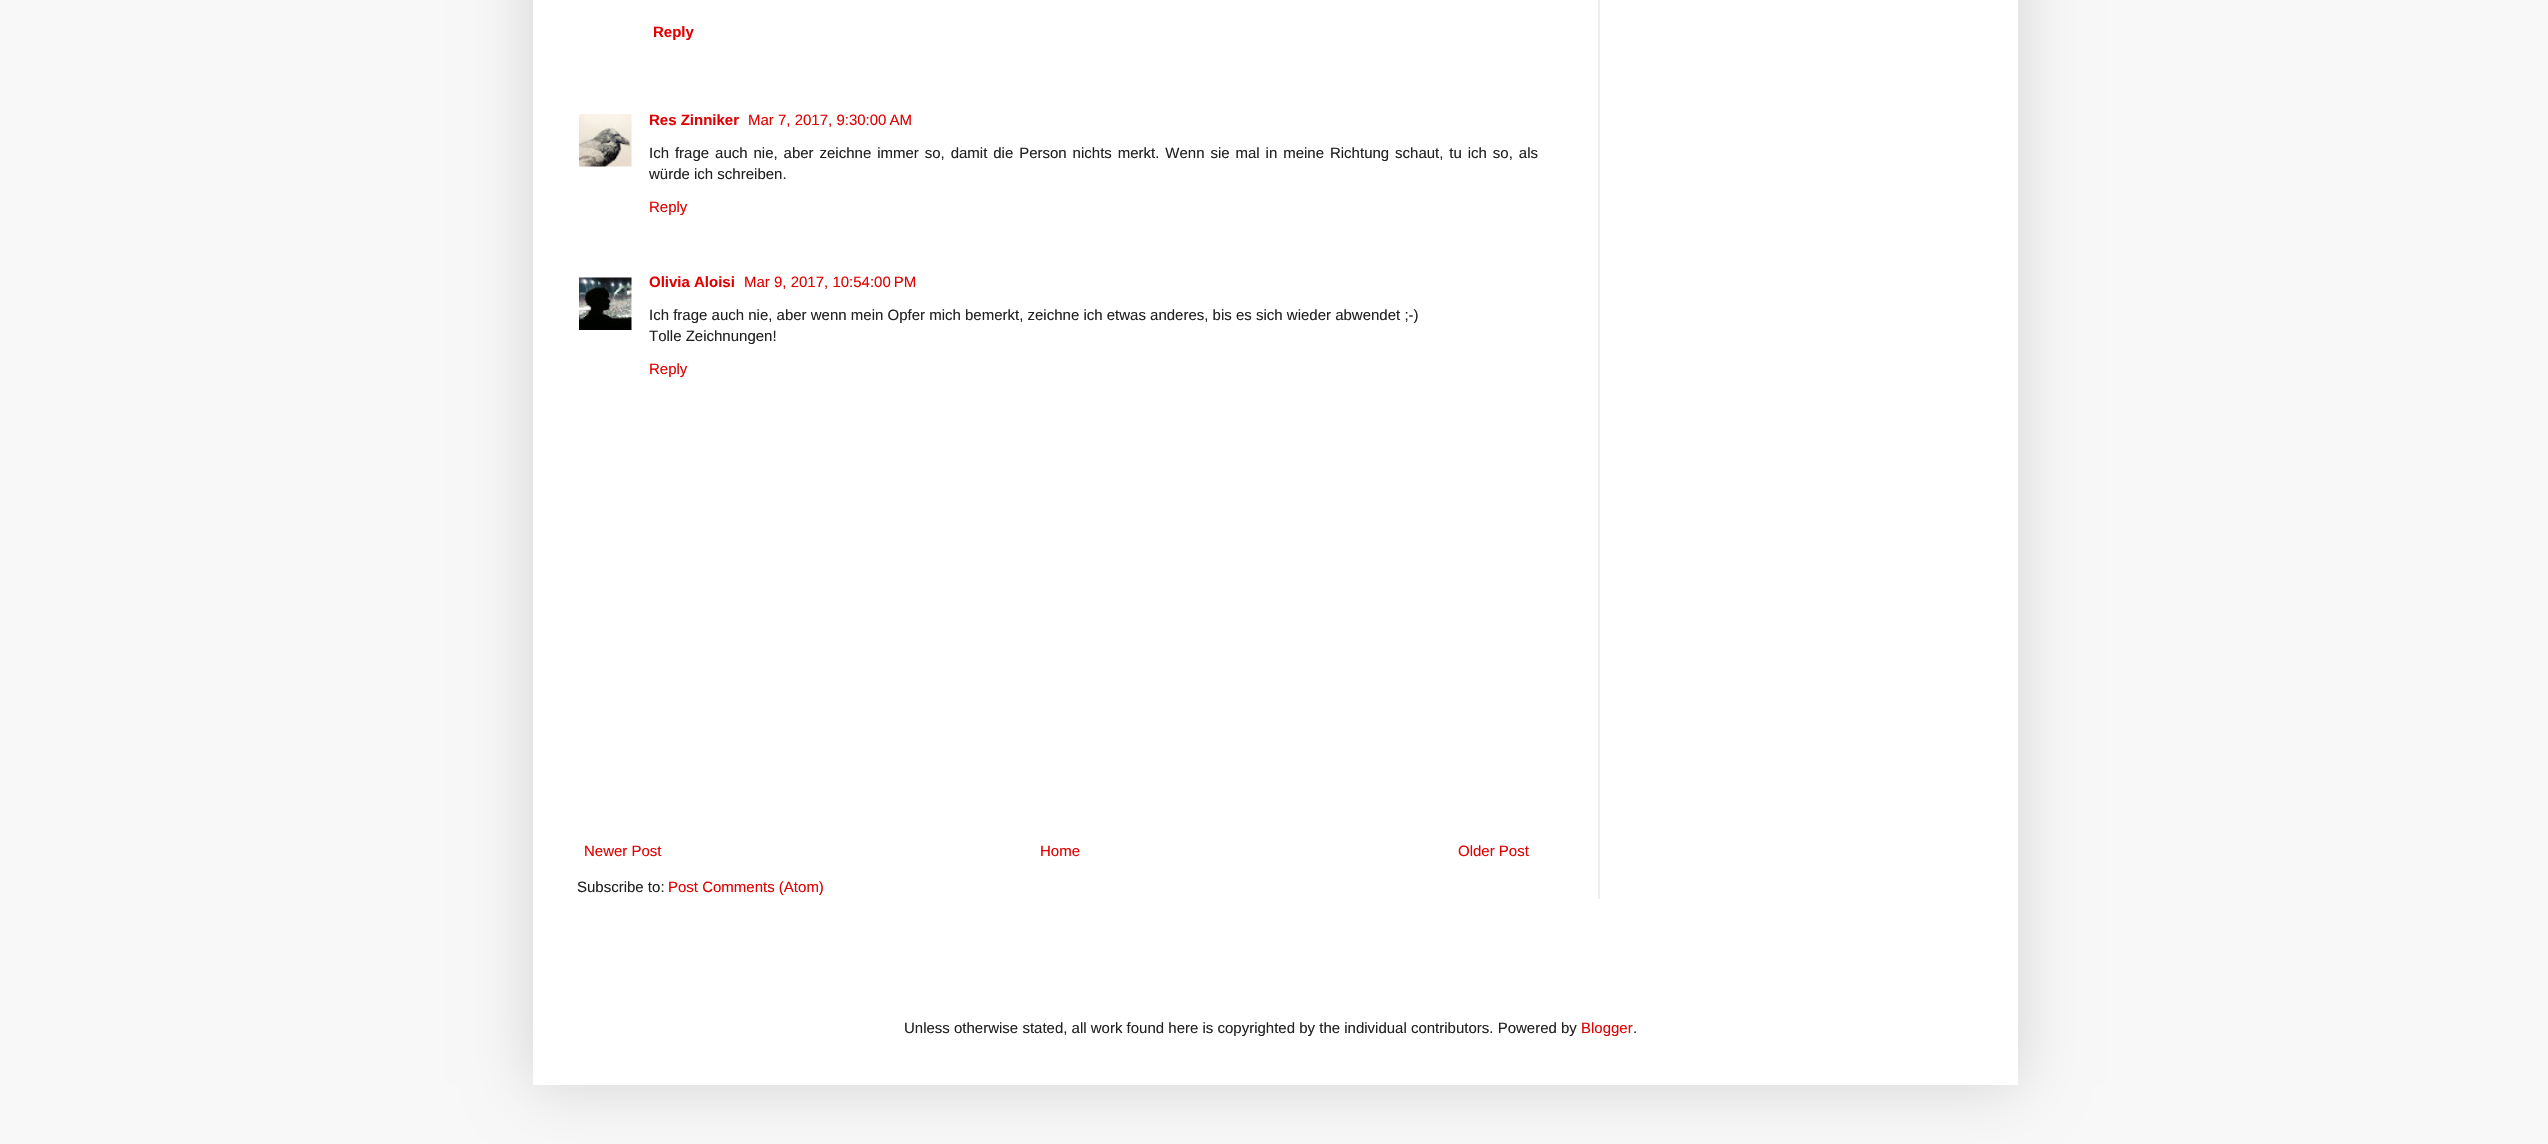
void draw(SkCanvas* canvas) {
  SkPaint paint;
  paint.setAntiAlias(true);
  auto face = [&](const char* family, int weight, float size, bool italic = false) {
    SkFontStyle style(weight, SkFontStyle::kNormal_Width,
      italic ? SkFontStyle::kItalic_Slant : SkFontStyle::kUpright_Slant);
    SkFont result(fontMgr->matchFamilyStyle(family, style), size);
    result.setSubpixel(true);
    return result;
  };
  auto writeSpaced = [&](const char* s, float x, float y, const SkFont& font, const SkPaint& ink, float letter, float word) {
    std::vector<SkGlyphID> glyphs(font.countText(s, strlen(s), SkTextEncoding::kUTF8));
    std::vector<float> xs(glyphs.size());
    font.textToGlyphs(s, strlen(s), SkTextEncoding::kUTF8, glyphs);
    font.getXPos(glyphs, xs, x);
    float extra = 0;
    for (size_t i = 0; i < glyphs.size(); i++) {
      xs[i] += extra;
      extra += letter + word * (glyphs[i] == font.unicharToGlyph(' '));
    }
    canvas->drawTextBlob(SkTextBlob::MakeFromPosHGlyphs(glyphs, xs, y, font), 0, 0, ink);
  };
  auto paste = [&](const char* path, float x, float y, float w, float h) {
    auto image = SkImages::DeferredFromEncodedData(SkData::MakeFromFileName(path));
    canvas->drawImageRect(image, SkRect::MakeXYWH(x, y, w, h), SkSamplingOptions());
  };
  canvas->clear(0xfff8f8f8);
  paint.setColor(0x26000000);
  paint.setMaskFilter(SkMaskFilter::MakeBlur(kNormal_SkBlurStyle, 30));
  canvas->drawRect(SkRect::MakeXYWH(533, -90, 1485, 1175), paint);
  paint.setMaskFilter(nullptr);
  paint.setColor(0xffffffff);
  canvas->drawRect(SkRect::MakeXYWH(533, 0, 1485, 1085), paint);
  paste("img/1.png", 579, 114, 53, 53);
  paste("img/2.png", 579, 277, 53, 53);
  paint.setColor(0xffeeeeee);
  canvas->drawRect(SkRect::MakeXYWH(1598, 0, 2, 899), paint);
  auto f0 = face("Liberation Sans", 700, 15);
  paint.setColor(0xffe10303);
  canvas->drawString("Reply", 653, 37, f0, paint);
  canvas->drawString("Res Zinniker", 649, 125, f0, paint);
  auto f1 = face("Liberation Sans", 400, 15);
  canvas->drawString("Mar 7, 2017, 9:30:00 AM", 748, 125, f1, paint);
  paint.setColor(0xff222222);
  writeSpaced("Ich frage auch nie, aber zeichne immer so, damit die Person nichts merkt. Wenn sie mal in meine Richtung schaut, tu ich so, als", 649, 158, f1, paint, 0, 1.75f);
  canvas->drawString("würde ich schreiben.", 649, 179, f1, paint);
  paint.setColor(0xffe10303);
  canvas->drawString("Reply", 649, 212, f1, paint);
  canvas->drawString("Olivia Aloisi", 649, 287, f0, paint);
  canvas->drawString("Mar 9, 2017, 10:54:00 PM", 744, 287, f1, paint);
  paint.setColor(0xff222222);
  canvas->drawString("Ich frage auch nie, aber wenn mein Opfer mich bemerkt, zeichne ich etwas anderes, bis es sich wieder abwendet ;-)", 649, 320, f1, paint);
  canvas->drawString("Tolle Zeichnungen!", 649, 341, f1, paint);
  paint.setColor(0xffe10303);
  {
    const struct { const char* s; float x, y; } items[] = {
      {"Reply", 649, 374},
      {"Newer Post", 584, 856},
      {"Home", 1040, 856},
      {"Older Post", 1458, 856},
    };
    for (auto [s, x, y] : items) {
      canvas->drawString(s, x, y, f1, paint);
    }
  }
  paint.setColor(0xff222222);
  canvas->drawString("Subscribe to:", 577, 892, f1, paint);
  paint.setColor(0xffe10303);
  canvas->drawString("Post Comments (Atom)", 668, 892, f1, paint);
  paint.setColor(0xff222222);
  canvas->drawString("Unless otherwise stated, all work found here is copyrighted by the individual contributors. Powered by", 904, 1033, f1, paint);
  paint.setColor(0xffe10303);
  canvas->drawString("Blogger", 1581, 1033, f1, paint);
  paint.setColor(0xff222222);
  canvas->drawString(".", 1633, 1033, f1, paint);
}
